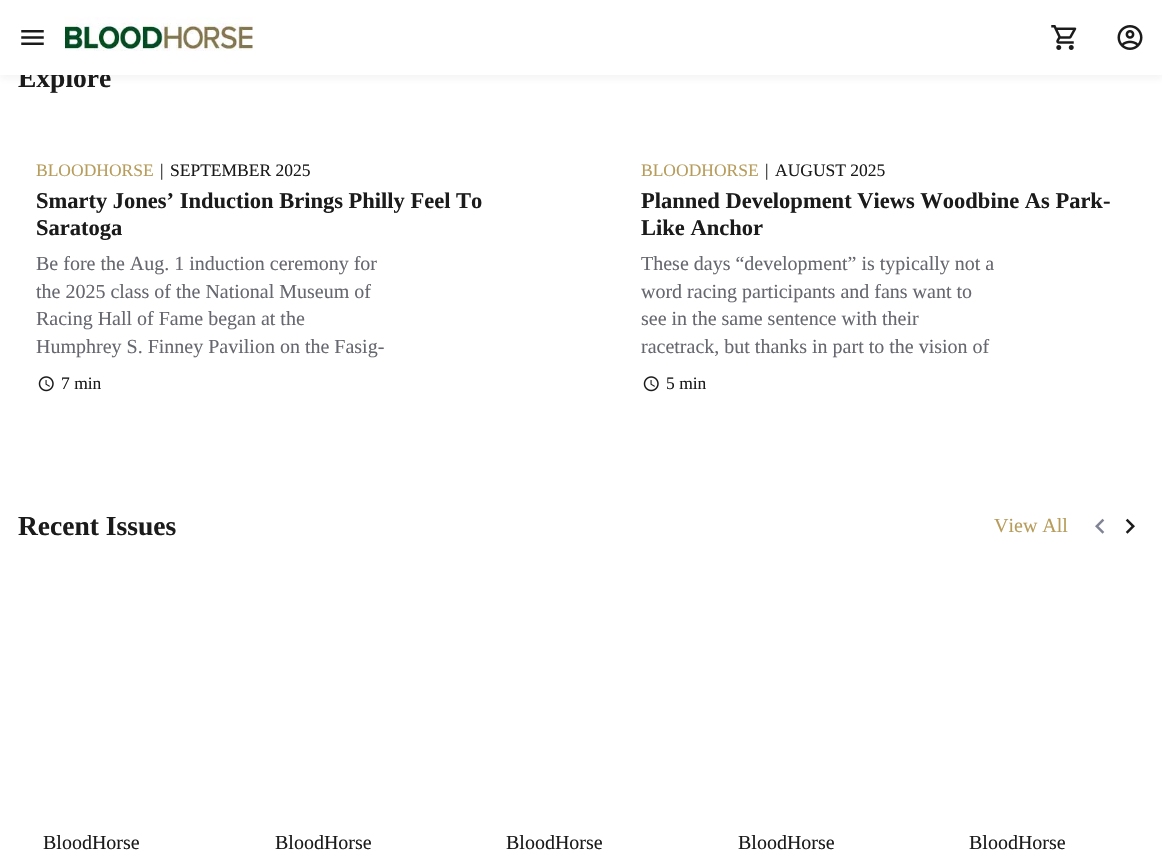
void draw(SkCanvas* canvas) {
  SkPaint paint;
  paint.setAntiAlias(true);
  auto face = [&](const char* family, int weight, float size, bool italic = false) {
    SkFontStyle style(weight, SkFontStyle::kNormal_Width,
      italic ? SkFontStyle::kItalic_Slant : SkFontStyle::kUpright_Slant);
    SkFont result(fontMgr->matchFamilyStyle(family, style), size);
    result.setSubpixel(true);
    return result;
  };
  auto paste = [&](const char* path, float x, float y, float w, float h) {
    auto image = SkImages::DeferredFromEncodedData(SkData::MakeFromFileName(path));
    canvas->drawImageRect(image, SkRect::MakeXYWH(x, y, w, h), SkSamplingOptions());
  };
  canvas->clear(0xffffffff);
  paint.setColor(0x0f1b1b1b);
  paint.setMaskFilter(SkMaskFilter::MakeBlur(kNormal_SkBlurStyle, 4));
  canvas->drawRect(SkRect::MakeXYWH(0, 3, 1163, 75), paint);
  paint.setMaskFilter(nullptr);
  paste("img/5.png", 38, 376, 16, 16);
  paste("img/5.png", 643, 376, 16, 16);
  paste("img/6.png", 1095, 518, 10, 16);
  paste("img/7.png", 1125, 518, 10, 16);
  auto f0 = face("Liberation Serif", 700, 27.5f);
  paint.setColor(0xff1b1b1b);
  canvas->drawString("Explore", 18, 87, f0, paint);
  paint.setColor(0xffffffff);
  canvas->drawRect(SkRect::MakeXYWH(0, 0, 1162, 75), paint);
  paste("img/3.png", 1051, 25, 26, 25);
  paste("img/4.png", 1117, 25, 26, 25);
  paste("img/1.png", 21, 30, 23, 15);
  paste("img/2.png", 65, 17, 188, 34);
  auto f1 = face("Liberation Serif", 400, 17.5f);
  paint.setColor(0xffb79c5b);
  canvas->drawString("BLOODHORSE", 36, 176, f1, paint);
  paint.setColor(0xff1b1b1b);
  canvas->drawString("|", 160, 176, f1, paint);
  canvas->drawString("SEPTEMBER 2025", 170, 176, f1, paint);
  auto f2 = face("Liberation Serif", 700, 22.5f);
  canvas->drawString("Smarty Jones’ Induction Brings Philly Feel To", 36, 208, f2, paint);
  canvas->drawString("Saratoga", 36, 235, f2, paint);
  auto f3 = face("Liberation Serif", 400, 20);
  paint.setColor(0xff67686f);
  {
    const struct { const char* s; float x, y; } items[] = {
      {"Be fore the Aug. 1 induction ceremony for", 36, 270},
      {"the 2025 class of the National Museum of", 36, 298},
      {"Racing Hall of Fame began at the", 36, 325},
      {"Humphrey S. Finney Pavilion on the Fasig-", 36, 353},
    };
    for (auto [s, x, y] : items) {
      canvas->drawString(s, x, y, f3, paint);
    }
  }
  paint.setColor(0xff1b1b1b);
  canvas->drawString("7 min", 61, 389, f1, paint);
  paint.setColor(0xffb79c5b);
  canvas->drawString("BLOODHORSE", 641, 176, f1, paint);
  paint.setColor(0xff1b1b1b);
  canvas->drawString("|", 765, 176, f1, paint);
  canvas->drawString("AUGUST 2025", 775, 176, f1, paint);
  canvas->drawString("Planned Development Views Woodbine As Park-", 641, 208, f2, paint);
  canvas->drawString("Like Anchor", 641, 235, f2, paint);
  paint.setColor(0xff67686f);
  {
    const struct { const char* s; float x, y; } items[] = {
      {"These days “development” is typically not a", 641, 270},
      {"word racing participants and fans want to", 641, 298},
      {"see in the same sentence with their", 641, 325},
      {"racetrack, but thanks in part to the vision of", 641, 353},
    };
    for (auto [s, x, y] : items) {
      canvas->drawString(s, x, y, f3, paint);
    }
  }
  paint.setColor(0xff1b1b1b);
  canvas->drawString("5 min", 666, 389, f1, paint);
  canvas->drawString("Recent Issues", 18, 535, f0, paint);
  paint.setColor(0xffb79c5b);
  canvas->drawString("View All", 994, 532, f3, paint);
  paint.setColor(0xff1b1b1b);
  {
    const struct { const char* s; float x, y; } items[] = {
      {"BloodHorse", 43, 849},
      {"BloodHorse", 275, 849},
      {"BloodHorse", 506, 849},
      {"BloodHorse", 738, 849},
      {"BloodHorse", 969, 849},
    };
    for (auto [s, x, y] : items) {
      canvas->drawString(s, x, y, f3, paint);
    }
  }
}
